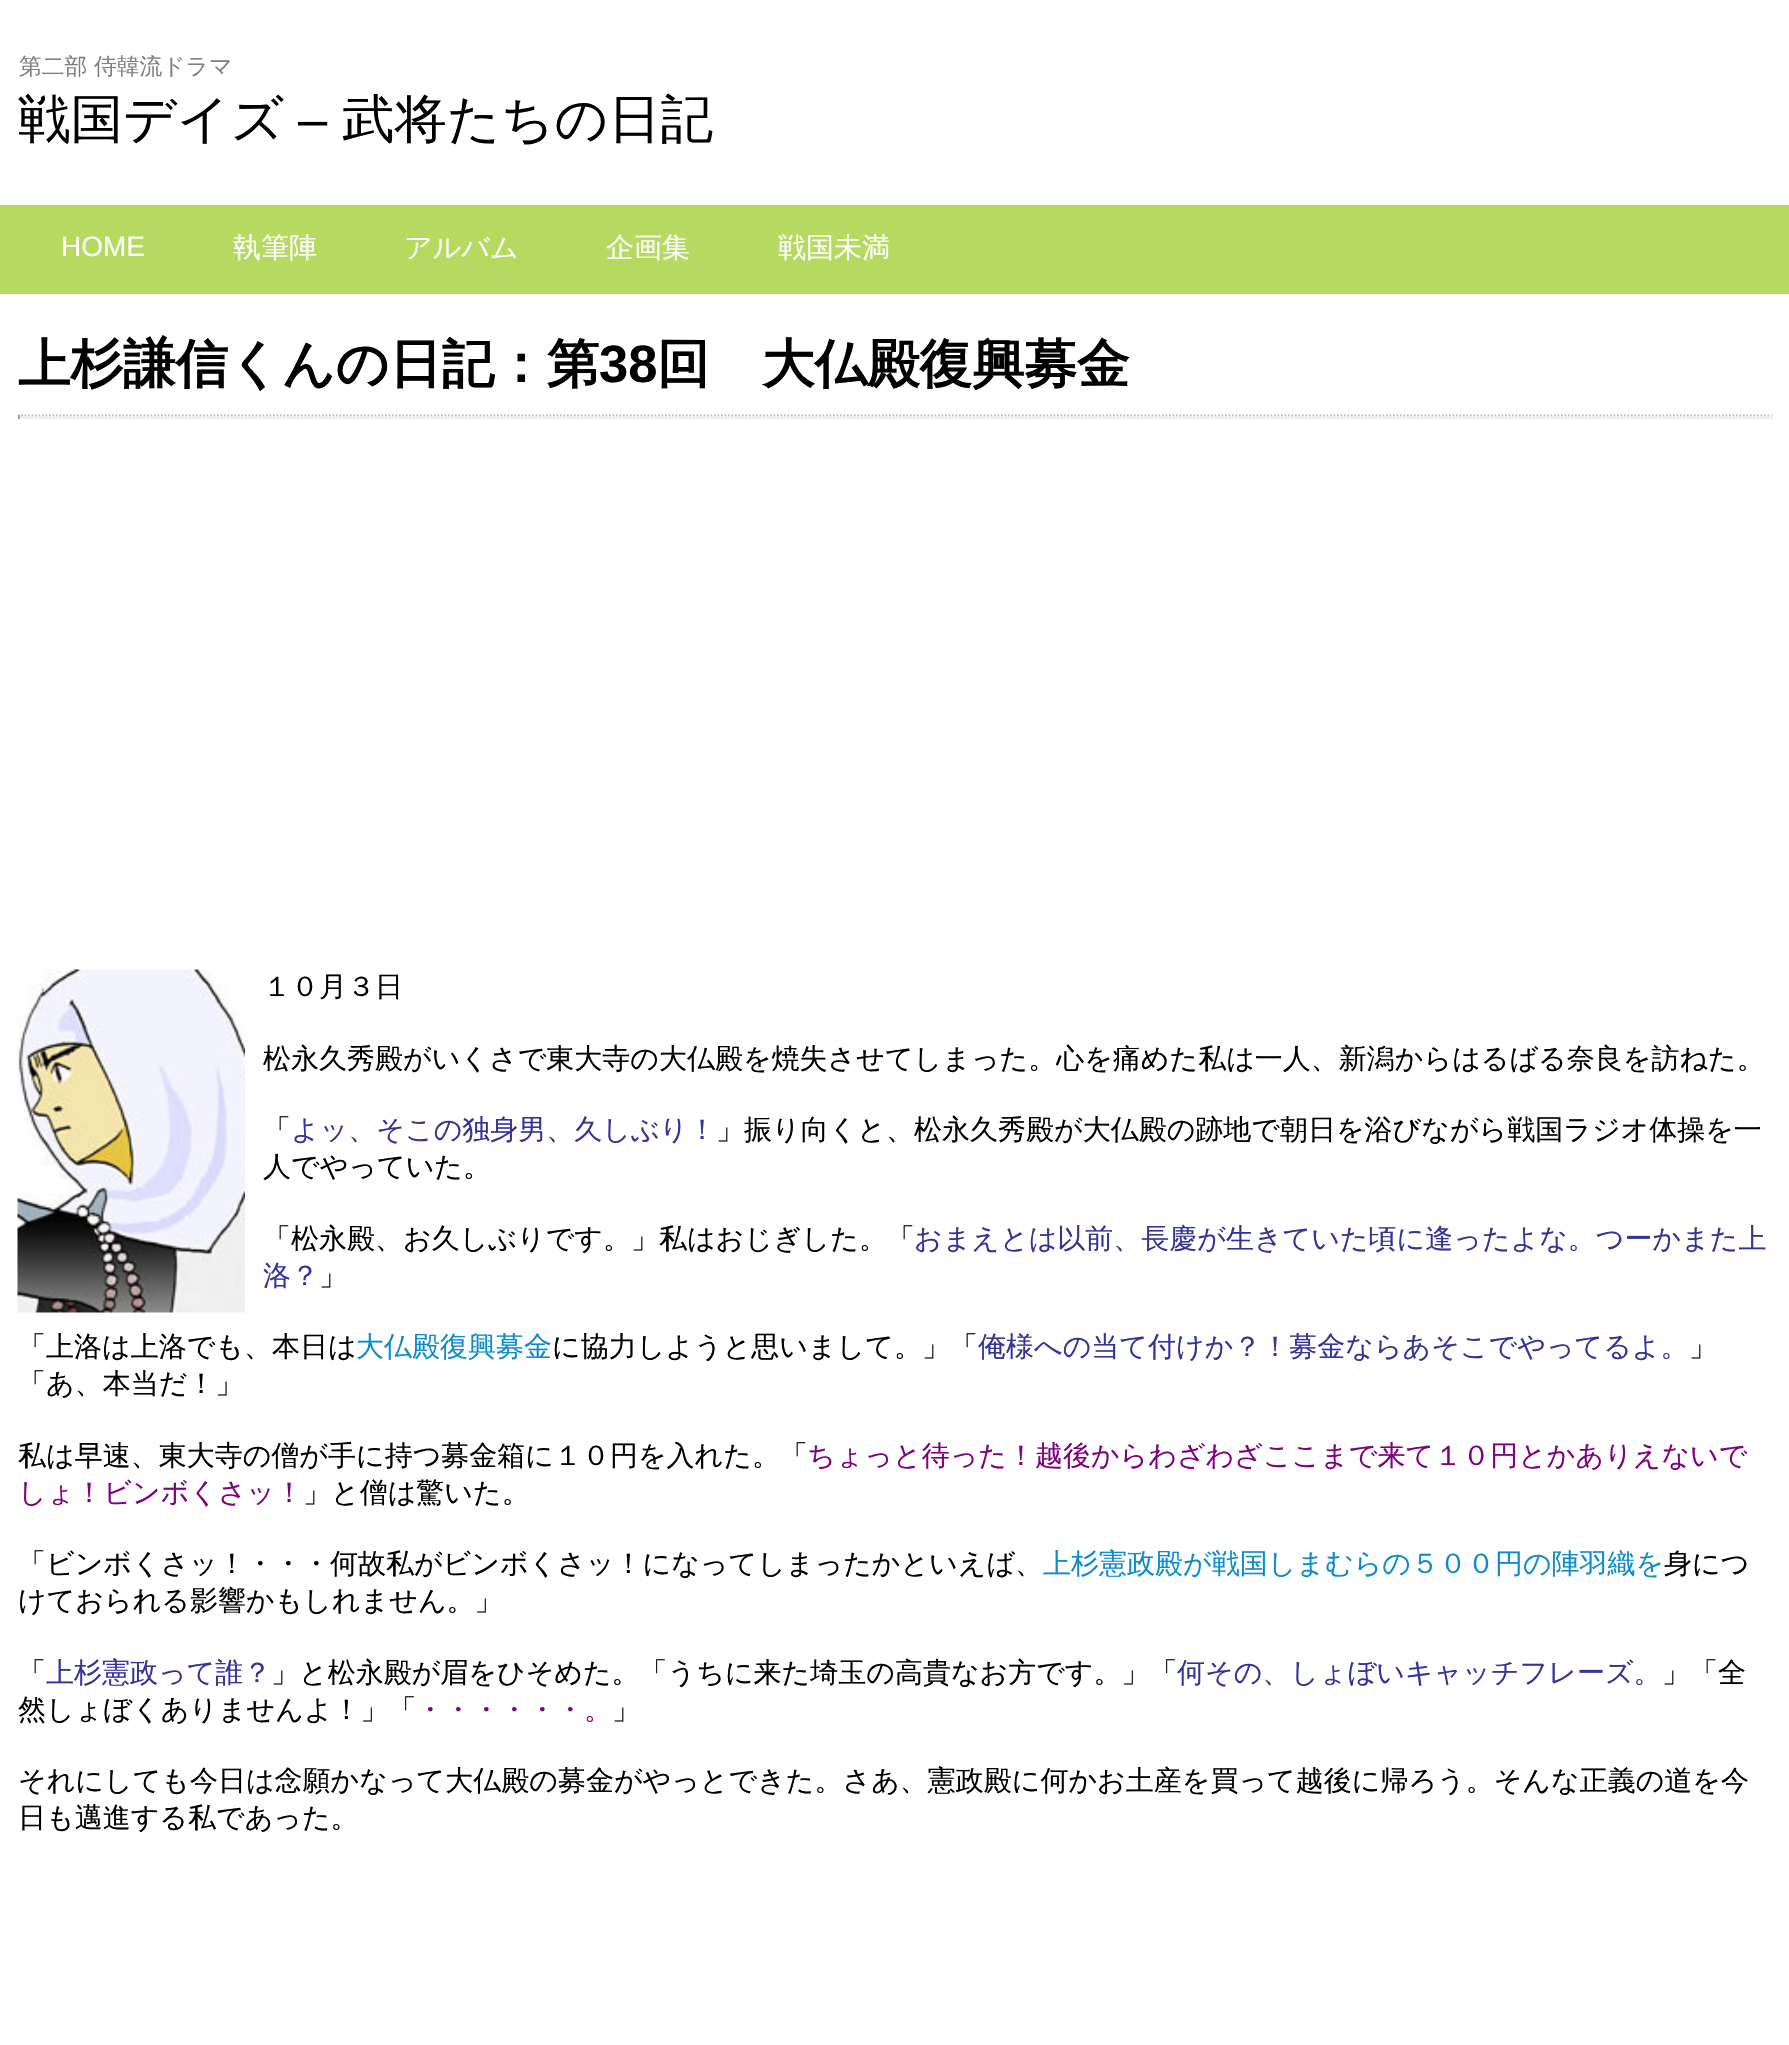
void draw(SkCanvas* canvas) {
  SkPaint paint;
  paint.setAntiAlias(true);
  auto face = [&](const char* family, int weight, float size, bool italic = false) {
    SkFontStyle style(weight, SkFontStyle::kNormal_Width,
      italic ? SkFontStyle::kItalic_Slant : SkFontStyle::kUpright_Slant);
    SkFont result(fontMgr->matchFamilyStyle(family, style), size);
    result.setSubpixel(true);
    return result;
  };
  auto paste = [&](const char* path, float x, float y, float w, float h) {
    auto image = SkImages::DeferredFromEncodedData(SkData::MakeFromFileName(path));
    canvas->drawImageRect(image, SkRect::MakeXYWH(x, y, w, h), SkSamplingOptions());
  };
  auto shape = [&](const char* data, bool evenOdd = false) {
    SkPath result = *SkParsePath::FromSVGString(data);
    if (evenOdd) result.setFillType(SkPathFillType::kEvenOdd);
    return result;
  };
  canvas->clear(0xffffffff);
  paint.setColor(0xffb6d95f);
  canvas->drawRect(SkRect::MakeXYWH(0, 205, 1789, 89), paint);
  paint.setStroke(true);
  paint.setStrokeWidth(1.8f);
  paint.setColor(0xffbbbbbb);
  paint.setPathEffect(SkDashPathEffect::Make({{1.75f, 1.75f}}, 0));
  canvas->drawPath(shape("M17.5 415.5H1773"), paint);
  paint.setPathEffect(nullptr);
  paint.setStroke(false);
  {
    const struct { float x, y, w, h; SkColor color; } items[] = {
      {1771, 415, 2, 4, 0xffeeeeee},
      {18, 417, 1755, 2, 0xffeeeeee},
      {18, 415, 2, 4, 0xff9f9f9f},
    };
    for (auto [x, y, w, h, color] : items) {
      paint.setColor(color);
      canvas->drawRect(SkRect::MakeXYWH(x, y, w, h), paint);
    }
  }
  paste("img/1.png", 17, 969, 228, 344);
  auto f0 = face("WenQuanYi Zen Hei", 500, 22.75f);
  paint.setColor(0xff808080);
  canvas->drawString("第二部 侍韓流ドラマ", 19, 74, f0, paint);
  auto f1 = face("WenQuanYi Zen Hei", 500, 52.5f);
  paint.setColor(0xff000000);
  canvas->drawString("戦国デイズ", 18, 137, f1, paint);
  auto f2 = face("Liberation Sans", 400, 52.5f);
  canvas->drawString("–", 298, 137, f2, paint);
  canvas->drawString("武将たちの日記", 342, 137, f1, paint);
  auto f3 = face("Liberation Sans", 400, 28);
  paint.setColor(0xffffffff);
  canvas->drawString("HOME", 61, 256, f3, paint);
  auto f4 = face("WenQuanYi Zen Hei", 500, 28);
  {
    const struct { const char* s; float x, y; } items[] = {
      {"執筆陣", 233, 257},
      {"アルバム", 404, 257},
      {"企画集", 606, 257},
      {"戦国未満", 778, 257},
    };
    for (auto [s, x, y] : items) {
      canvas->drawString(s, x, y, f4, paint);
    }
  }
  auto f5 = face("WenQuanYi Zen Hei", 700, 52.5f);
  paint.setColor(0xff000000);
  canvas->drawString("上杉謙信くんの日記：第", 18, 382, f5, paint);
  auto f6 = face("Liberation Sans", 700, 52.5f);
  canvas->drawString("38", 599, 382, f6, paint);
  canvas->drawString("回　大仏殿復興募金", 657, 382, f5, paint);
  {
    const struct { const char* s; float x, y; } items[] = {
      {"１０月３日", 263, 996},
      {"松永久秀殿がいくさで東大寺の大仏殿を焼失させてしまった。心を痛めた私は一人、新潟からはるばる奈良を訪ねた。", 263, 1068},
      {"「", 263, 1139},
    };
    for (auto [s, x, y] : items) {
      canvas->drawString(s, x, y, f4, paint);
    }
  }
  paint.setColor(0xff333399);
  canvas->drawString("よッ、そこの独身男、久しぶり！", 291, 1139, f4, paint);
  paint.setColor(0xff000000);
  {
    const struct { const char* s; float x, y; } items[] = {
      {"」振り向くと、松永久秀殿が大仏殿の跡地で朝日を浴びながら戦国ラジオ体操を一", 716, 1139},
      {"人でやっていた。", 263, 1176},
      {"「松永殿、お久しぶりです。」私はおじぎした。「", 263, 1248},
    };
    for (auto [s, x, y] : items) {
      canvas->drawString(s, x, y, f4, paint);
    }
  }
  paint.setColor(0xff333399);
  canvas->drawString("おまえとは以前、長慶が生きていた頃に逢ったよな。つーかまた上", 914, 1248, f4, paint);
  canvas->drawString("洛？", 263, 1285, f4, paint);
  paint.setColor(0xff000000);
  canvas->drawString("」", 319, 1285, f4, paint);
  canvas->drawString("「上洛は上洛でも、本日は", 18, 1356, f4, paint);
  paint.setColor(0xff0c8bcd);
  canvas->drawString("大仏殿復興募金", 356, 1356, f4, paint);
  paint.setColor(0xff000000);
  canvas->drawString("に協力しようと思いまして。」「", 552, 1356, f4, paint);
  paint.setColor(0xff333399);
  canvas->drawString("俺様への当て付けか？！募金ならあそこでやってるよ。", 978, 1356, f4, paint);
  paint.setColor(0xff000000);
  {
    const struct { const char* s; float x, y; } items[] = {
      {"」", 1689, 1356},
      {"「あ、本当だ！」", 18, 1393},
      {"私は早速、東大寺の僧が手に持つ募金箱に１０円を入れた。「", 18, 1465},
    };
    for (auto [s, x, y] : items) {
      canvas->drawString(s, x, y, f4, paint);
    }
  }
  paint.setColor(0xff800080);
  canvas->drawString("ちょっと待った！越後からわざわざここまで来て１０円とかありえないで", 807, 1465, f4, paint);
  canvas->drawString("しょ！ビンボくさッ！", 18, 1502, f4, paint);
  paint.setColor(0xff000000);
  canvas->drawString("」と僧は驚いた。", 303, 1502, f4, paint);
  canvas->drawString("「ビンボくさッ！・・・何故私がビンボくさッ！になってしまったかといえば、", 18, 1573, f4, paint);
  paint.setColor(0xff0c8bcd);
  canvas->drawString("上杉憲政殿が戦国しまむらの５００円の陣羽織を", 1043, 1573, f4, paint);
  paint.setColor(0xff000000);
  {
    const struct { const char* s; float x, y; } items[] = {
      {"身につ", 1664, 1573},
      {"けておられる影響かもしれません。」", 18, 1610},
      {"「", 18, 1682},
    };
    for (auto [s, x, y] : items) {
      canvas->drawString(s, x, y, f4, paint);
    }
  }
  paint.setColor(0xff333399);
  canvas->drawString("上杉憲政って誰？", 46, 1682, f4, paint);
  paint.setColor(0xff000000);
  canvas->drawString("」と松永殿が眉をひそめた。「うちに来た埼玉の高貴なお方です。」「", 271, 1682, f4, paint);
  paint.setColor(0xff333399);
  canvas->drawString("何その、しょぼいキャッチフレーズ。", 1177, 1682, f4, paint);
  paint.setColor(0xff000000);
  canvas->drawString("」「全", 1662, 1682, f4, paint);
  canvas->drawString("然しょぼくありませんよ！」「", 18, 1719, f4, paint);
  paint.setColor(0xff800080);
  canvas->drawString("・・・・・・。", 416, 1719, f4, paint);
  paint.setColor(0xff000000);
  {
    const struct { const char* s; float x, y; } items[] = {
      {"」", 612, 1719},
      {"それにしても今日は念願かなって大仏殿の募金がやっとできた。さあ、憲政殿に何かお土産を買って越後に帰ろう。そんな正義の道を今", 18, 1790},
      {"日も邁進する私であった。", 18, 1827},
    };
    for (auto [s, x, y] : items) {
      canvas->drawString(s, x, y, f4, paint);
    }
  }
}
